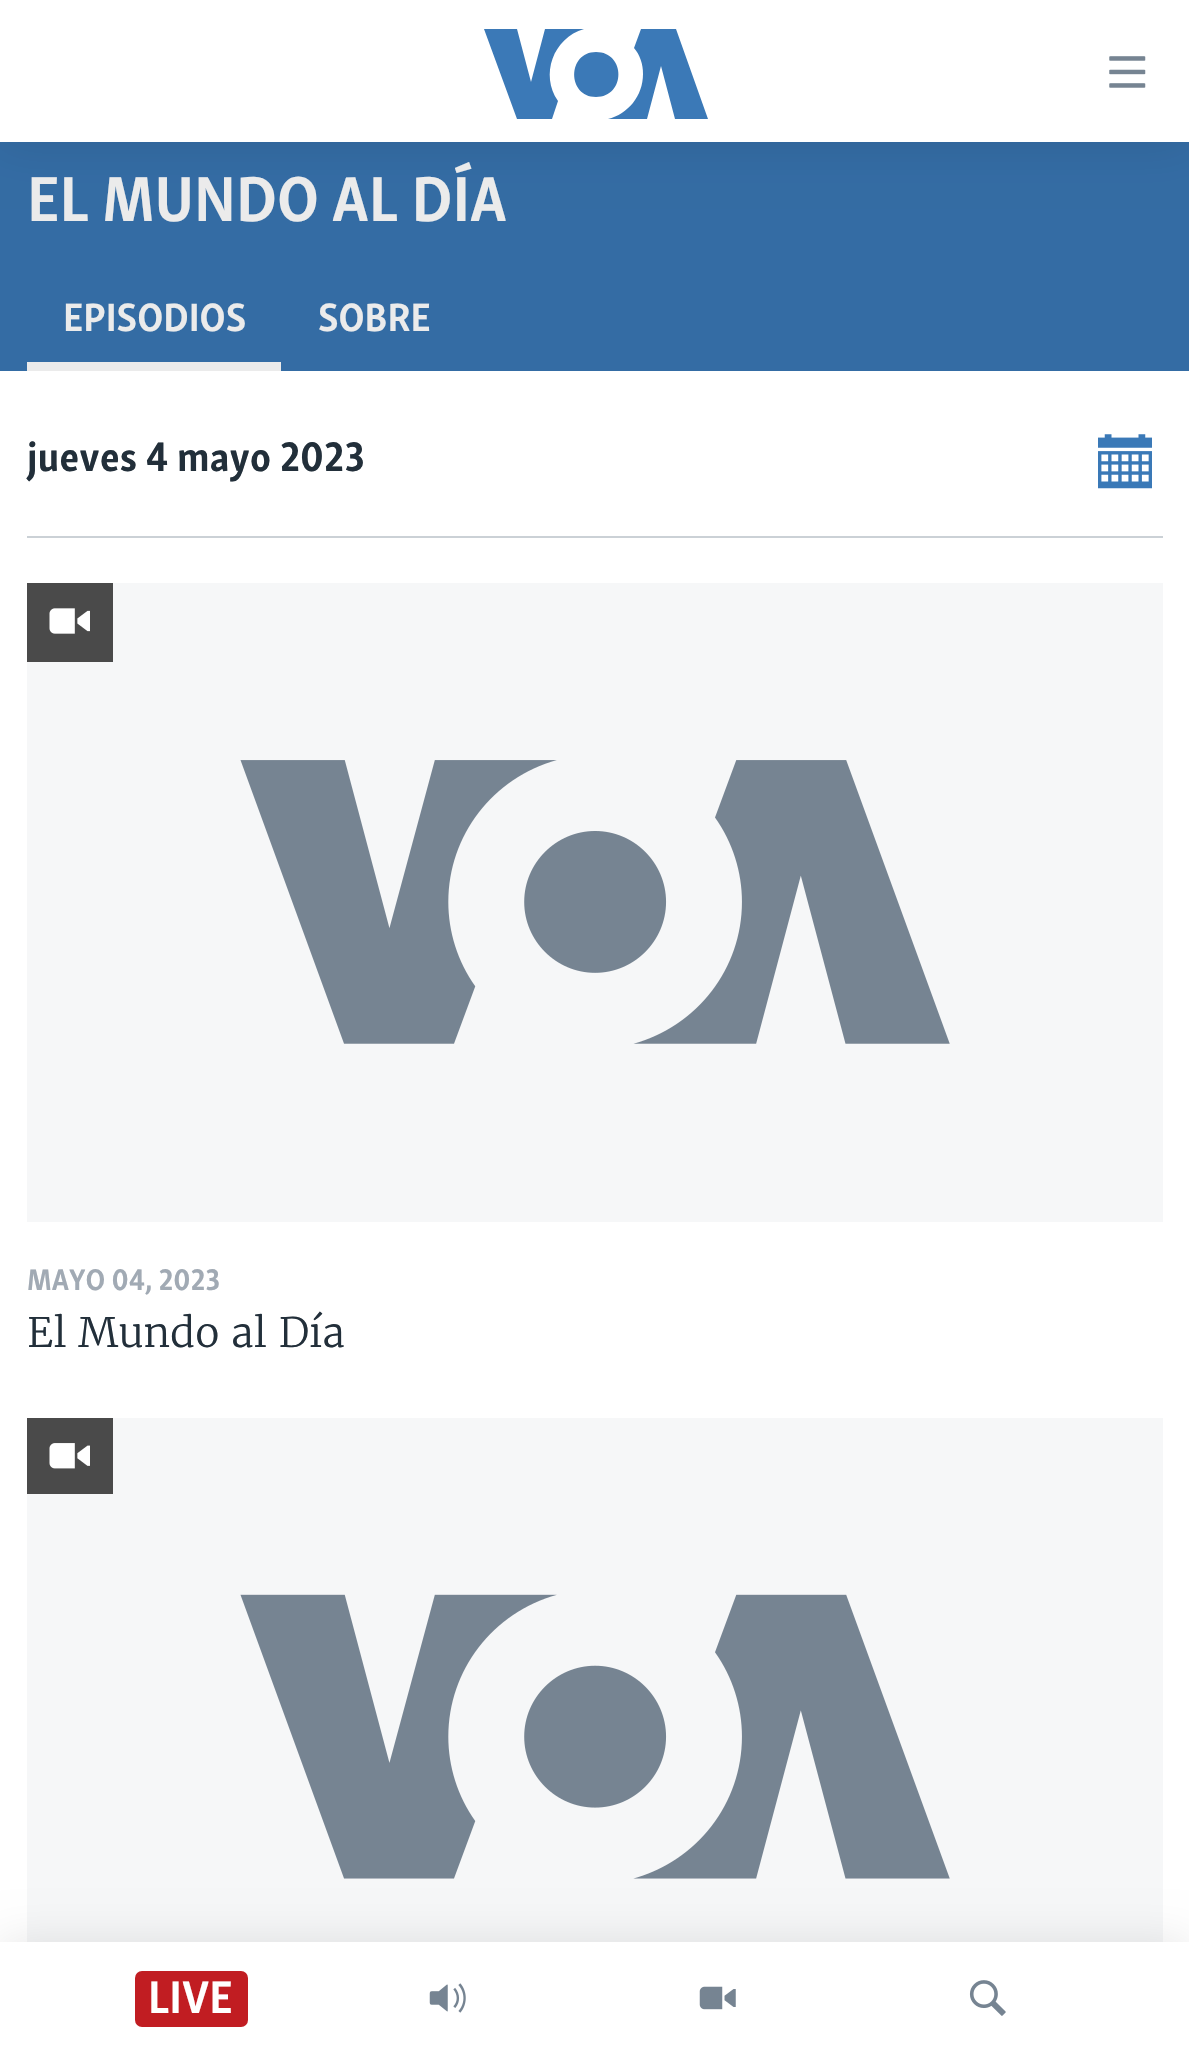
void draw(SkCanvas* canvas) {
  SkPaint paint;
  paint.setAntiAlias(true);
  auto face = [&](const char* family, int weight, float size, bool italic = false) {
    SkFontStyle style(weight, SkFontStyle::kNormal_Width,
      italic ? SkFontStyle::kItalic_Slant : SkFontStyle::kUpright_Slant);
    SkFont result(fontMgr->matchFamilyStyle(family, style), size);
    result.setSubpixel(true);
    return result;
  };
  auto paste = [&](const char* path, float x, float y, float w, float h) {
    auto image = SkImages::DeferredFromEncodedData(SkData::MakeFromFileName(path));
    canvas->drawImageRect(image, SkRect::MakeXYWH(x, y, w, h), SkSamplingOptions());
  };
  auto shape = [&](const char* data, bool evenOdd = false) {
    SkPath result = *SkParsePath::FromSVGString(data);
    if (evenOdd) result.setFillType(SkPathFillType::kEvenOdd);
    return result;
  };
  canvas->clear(0xffffffff);
  {
    const struct { float x, y, w, h; SkColor color; } items[] = {
      {0, 142, 1189, 229, 0xff346ca4},
      {27, 362, 254, 9, 0xffebebeb},
      {27, 536, 1136, 2, 0xffcbd1d6},
    };
    for (auto [x, y, w, h, color] : items) {
      paint.setColor(color);
      canvas->drawRect(SkRect::MakeXYWH(x, y, w, h), paint);
    }
  }
  paste("img/1.png", 1098, 434, 54, 55);
  paint.setColor(0xfff6f7f8);
  canvas->drawRect(SkRect::MakeXYWH(27, 583, 1136, 639), paint);
  paste("img/2.png", 240, 760, 710, 284);
  paint.setColor(0xff4a4a4a);
  canvas->drawRect(SkRect::MakeXYWH(27, 583, 86, 79), paint);
  paste("img/3.png", 49, 608, 41, 26);
  paint.setColor(0xfff6f7f8);
  canvas->drawRect(SkRect::MakeXYWH(27, 1418, 1136, 524), paint);
  paste("img/4.png", 240, 1594, 710, 285);
  paint.setColor(0xff4a4a4a);
  canvas->drawRect(SkRect::MakeXYWH(27, 1418, 86, 76), paint);
  paste("img/5.png", 49, 1443, 41, 26);
  paint.setColor(0x1a000000);
  paint.setMaskFilter(SkMaskFilter::MakeBlur(kNormal_SkBlurStyle, 22.5f));
  canvas->drawRect(SkRect::MakeXYWH(0, 0, 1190, 142), paint);
  paint.setMaskFilter(nullptr);
  paint.setColor(0xffffffff);
  canvas->drawRect(SkRect::MakeXYWH(0, 0, 1189, 142), paint);
  paint.setColor(0xff3b79b7);
  canvas->drawPath(shape("M558 101L552 119H517L484 29H517L531 82L545 29H584C553 38 540 75 558 101ZM596 52C567 52 567 97 596 97C626 97 626 52 596 52ZM643 74C643 96 628 114 608 119H647L661 66L675 119H708L676 29H641L634 48C640 55 643 64 643 74Z"), paint);
  paste("img/6.png", 1109, 56, 37, 32);
  paint.setColor(0x1a000000);
  paint.setMaskFilter(SkMaskFilter::MakeBlur(kNormal_SkBlurStyle, 22.5f));
  canvas->drawRect(SkRect::MakeXYWH(0, 1942, 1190, 112), paint);
  paint.setMaskFilter(nullptr);
  paint.setColor(0xffffffff);
  canvas->drawRect(SkRect::MakeXYWH(0, 1942, 1189, 112), paint);
  paint.setColor(0xffc11d22);
  canvas->drawRoundRect(SkRect::MakeXYWH(135, 1971, 113, 56), 7, 7, paint);
  paste("img/7.png", 429, 1983, 37, 30);
  paste("img/8.png", 699, 1986, 37, 24);
  paste("img/9.png", 969, 1980, 37, 36);
  auto f0 = face("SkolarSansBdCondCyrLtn", 700, 65.25f);
  paint.setColor(0xffebebeb);
  canvas->drawString("EL MUNDO AL DÍA", 27, 221, f0, paint);
  auto f1 = face("SkolarSansBdCondCyrLtn", 700, 40.5f);
  canvas->drawString("EPISODIOS", 63, 331, f1, paint);
  canvas->drawString("SOBRE", 318, 331, f1, paint);
  auto f2 = face("SkolarSansBdCondCyrLtn", 700, 42.5f);
  paint.setColor(0xff222f3a);
  canvas->drawString("jueves 4 mayo 2023", 27, 471, f2, paint);
  auto f3 = face("SkolarSansBdCondCyrLtn", 700, 30.75f);
  paint.setColor(0xffa1aab4);
  canvas->drawString("MAYO 04, 2023", 27, 1290, f3, paint);
  auto f4 = face("Merriweather", 300, 40.5f);
  paint.setColor(0xff222f3a);
  canvas->drawString("El Mundo al Día", 27, 1347, f4, paint);
  auto f5 = face("SkolarSansBdCondCyrLtn", 700, 47);
  paint.setColor(0xffffffff);
  canvas->drawString("LIVE", 148, 2013, f5, paint);
}
